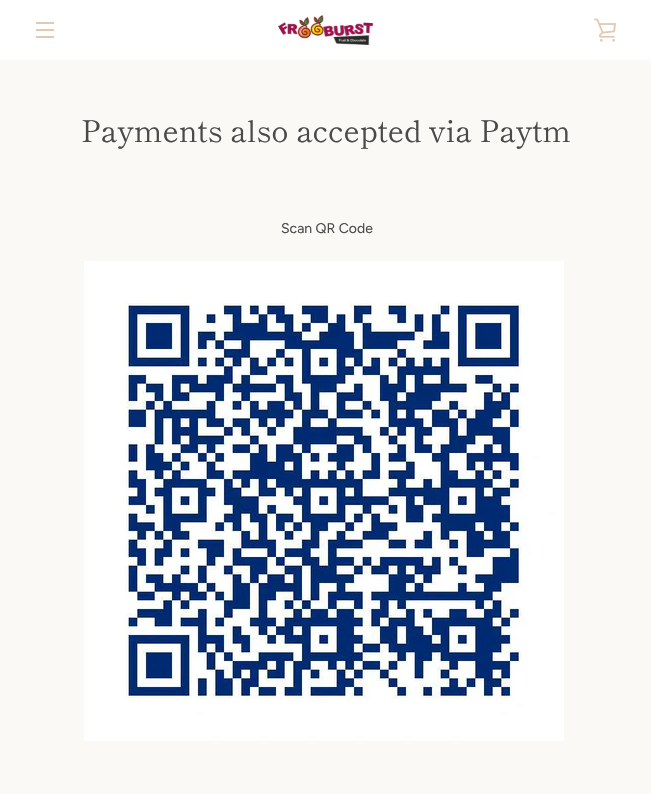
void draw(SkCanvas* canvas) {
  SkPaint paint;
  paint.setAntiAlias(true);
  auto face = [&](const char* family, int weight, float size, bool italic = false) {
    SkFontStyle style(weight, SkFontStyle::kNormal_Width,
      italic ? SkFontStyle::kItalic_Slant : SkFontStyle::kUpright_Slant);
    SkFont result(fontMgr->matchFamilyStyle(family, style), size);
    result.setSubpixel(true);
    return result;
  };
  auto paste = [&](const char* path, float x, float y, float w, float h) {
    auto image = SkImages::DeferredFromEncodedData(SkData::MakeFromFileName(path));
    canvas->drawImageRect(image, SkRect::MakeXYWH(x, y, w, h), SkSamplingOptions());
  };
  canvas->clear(0xfffaf9f6);
  {
    const struct { float x, y, w, h; SkColor color; } items[] = {
      {0, 0, 651, 60, 0xffffffff},
      {36, 22, 18, 2, 0xffe1c9b4},
      {36, 29, 18, 2, 0xffe1c9b4},
      {36, 36, 18, 2, 0xffe1c9b4},
    };
    for (auto [x, y, w, h, color] : items) {
      paint.setColor(color);
      canvas->drawRect(SkRect::MakeXYWH(x, y, w, h), paint);
    }
  }
  paste("img/1.png", 278, 15, 95, 30);
  paste("img/2.png", 594, 18, 22, 24);
  paste("img/3.png", 84, 261, 480, 480);
  auto f0 = face("Shippori Mincho", 400, 30);
  paint.setColor(0xff4a4a4a);
  canvas->drawString("Payments also accepted via Paytm", 81, 142, f0, paint);
  auto f1 = face("Figtree", 400, 14);
  canvas->drawString("Scan QR Code", 281, 233, f1, paint);
}
